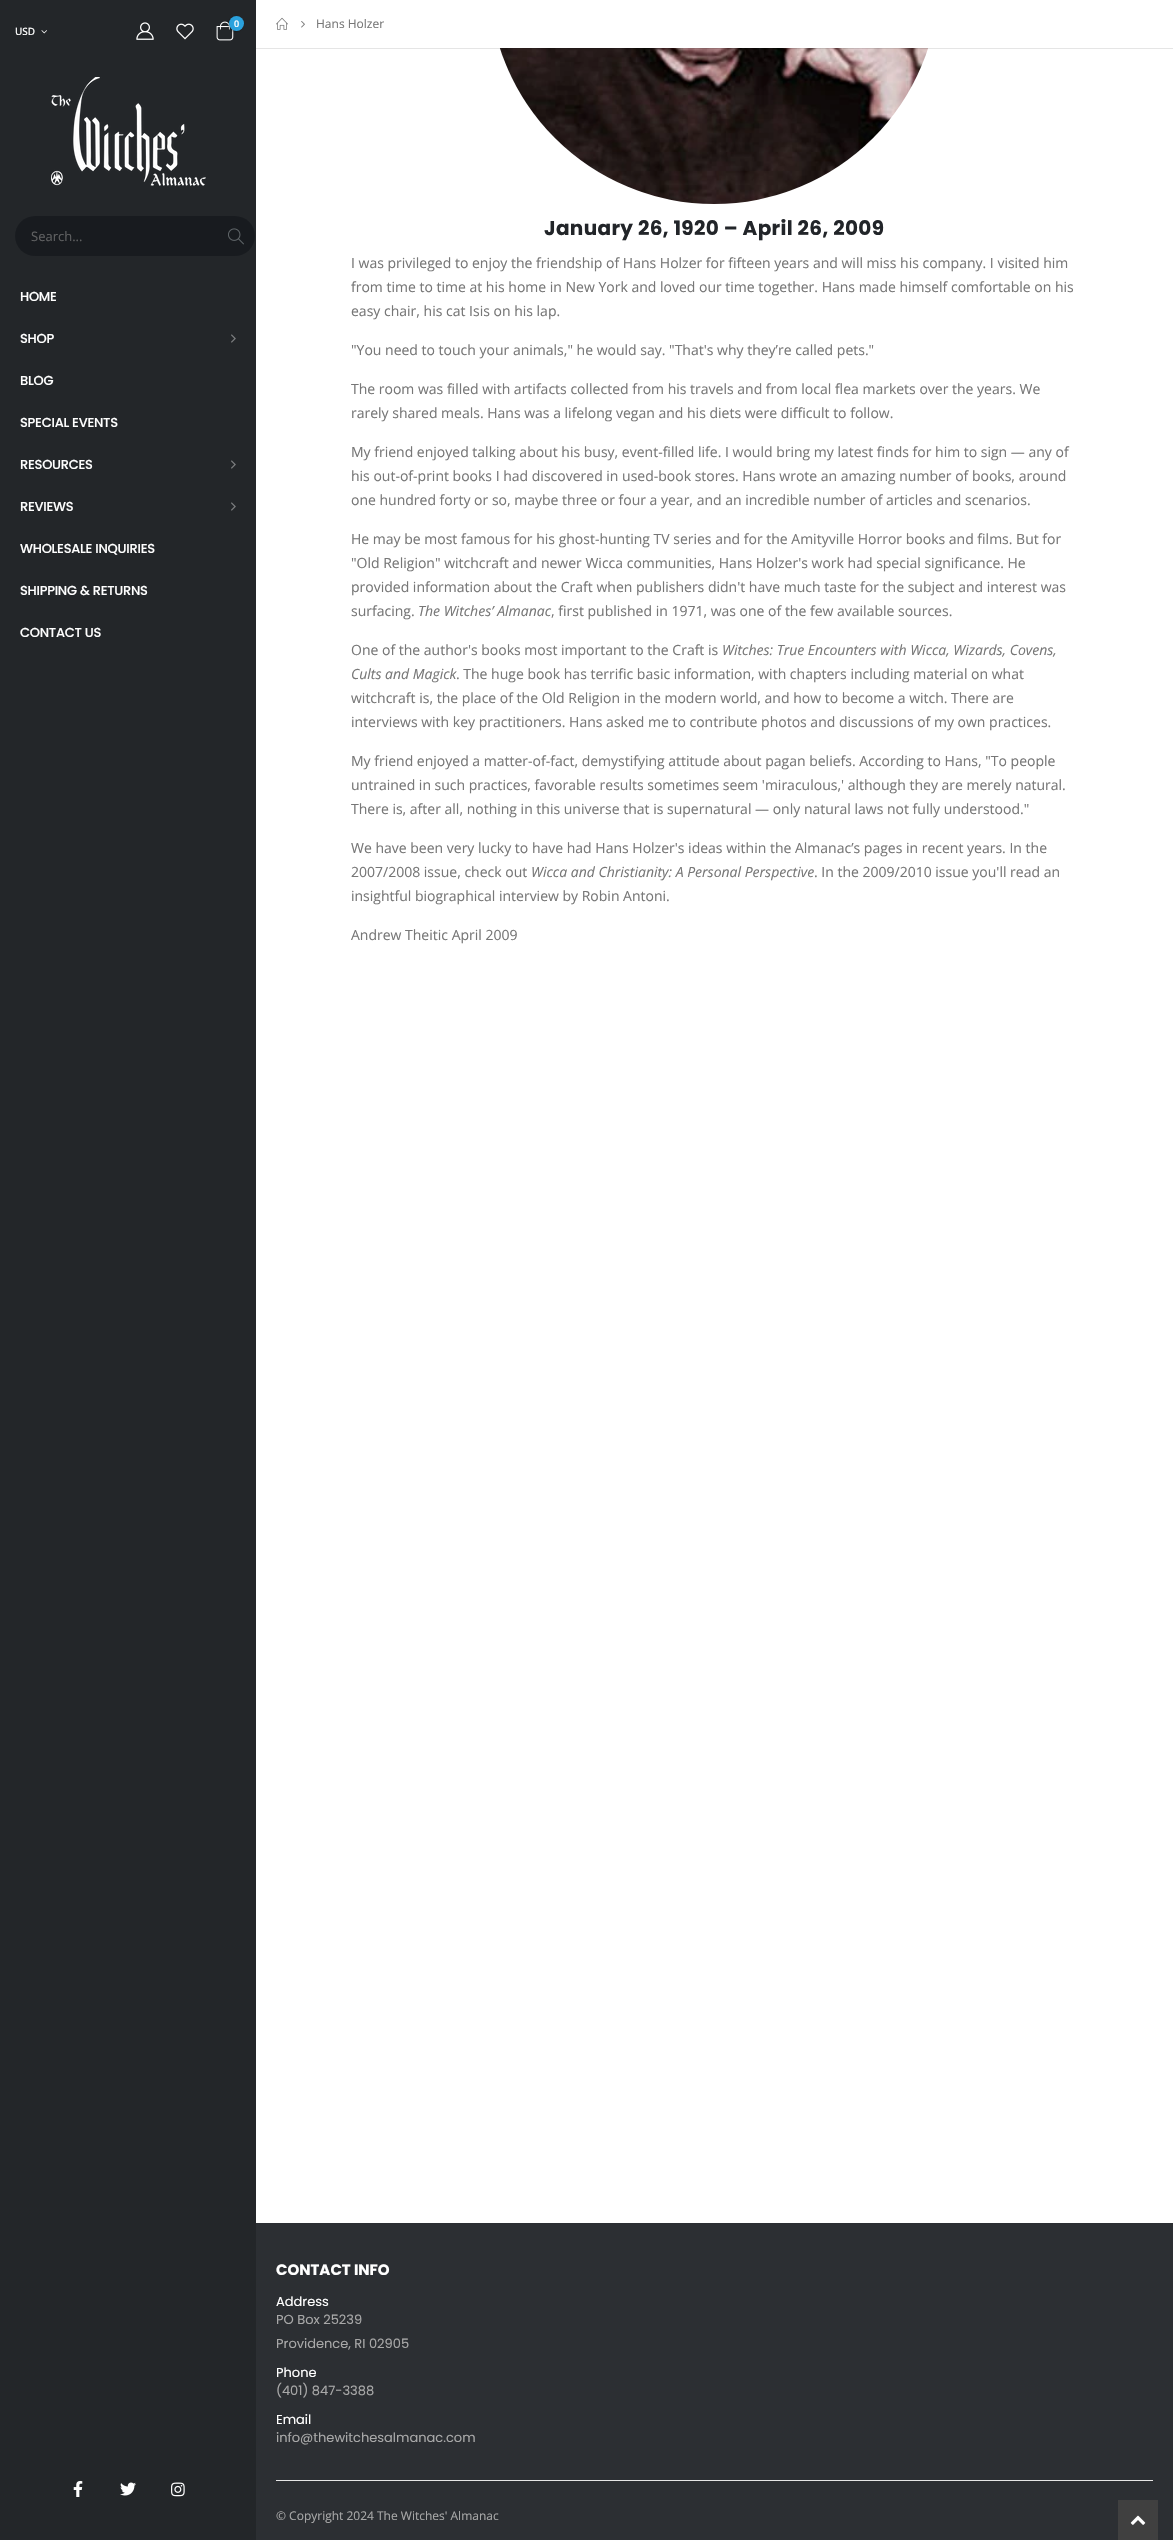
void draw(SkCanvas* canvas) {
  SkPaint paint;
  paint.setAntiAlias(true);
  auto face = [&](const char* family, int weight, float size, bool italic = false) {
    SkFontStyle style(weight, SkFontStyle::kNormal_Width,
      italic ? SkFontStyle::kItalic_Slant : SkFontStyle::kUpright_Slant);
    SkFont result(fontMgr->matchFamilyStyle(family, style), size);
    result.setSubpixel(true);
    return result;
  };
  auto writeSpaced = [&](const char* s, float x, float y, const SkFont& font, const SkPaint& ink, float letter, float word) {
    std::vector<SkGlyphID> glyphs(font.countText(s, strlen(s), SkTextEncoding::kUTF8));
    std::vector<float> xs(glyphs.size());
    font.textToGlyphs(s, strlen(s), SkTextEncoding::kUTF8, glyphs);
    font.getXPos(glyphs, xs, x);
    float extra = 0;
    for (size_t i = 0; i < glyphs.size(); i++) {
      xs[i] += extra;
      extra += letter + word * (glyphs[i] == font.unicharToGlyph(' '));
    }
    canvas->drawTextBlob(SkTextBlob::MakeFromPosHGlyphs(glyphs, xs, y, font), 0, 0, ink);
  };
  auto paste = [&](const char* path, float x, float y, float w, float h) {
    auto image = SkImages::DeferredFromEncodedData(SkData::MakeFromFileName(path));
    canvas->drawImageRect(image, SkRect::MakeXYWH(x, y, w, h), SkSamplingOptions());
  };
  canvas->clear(0xffffffff);
  paint.setColor(0xff232629);
  canvas->drawRect(SkRect::MakeXYWH(0, 0, 256, 2540), paint);
  paste("img/1.png", 136, 22, 18, 18);
  paste("img/2.png", 176, 23, 18, 17);
  paste("img/3.png", 216, 21, 18, 20);
  paint.setColor(0x4d000000);
  paint.setMaskFilter(SkMaskFilter::MakeBlur(kNormal_SkBlurStyle, 1));
  canvas->drawRoundRect(SkRect::MakeXYWH(228, 17, 15, 15), 7.5f, 7.5f, paint);
  paint.setMaskFilter(nullptr);
  paint.setColor(0xff2aa1dd);
  canvas->drawCircle(236.5f, 23.5f, 7.5f, paint);
  paste("img/4.png", 41, 30, 6, 4);
  paste("img/5.png", 51, 77, 155, 109);
  paint.setColor(0xff181b1f);
  canvas->drawRoundRect(SkRect::MakeXYWH(15, 216, 240, 40), 20, 20, paint);
  paste("img/6.png", 228, 228, 16, 17);
  paste("img/7.png", 231, 334, 5, 9);
  paste("img/7.png", 231, 460, 5, 9);
  paste("img/7.png", 231, 502, 5, 9);
  paste("img/8.png", 73, 2481, 10, 16);
  paste("img/9.png", 120, 2482, 16, 14);
  paste("img/10.png", 171, 2482, 14, 15);
  paste("img/13.png", 499, 48, 429, 156);
  paint.setColor(0x1a000000);
  canvas->drawRect(SkRect::MakeXYWH(256, 48, 917, 1), paint);
  paste("img/11.png", 276, 17, 12, 13);
  paste("img/12.png", 301, 21, 4, 7);
  {
    const struct { float x, y, w, h; SkColor color; } items[] = {
      {256, 2223, 917, 317, 0xff2c2f33},
      {276, 2480, 877, 1, 0xffe7e7e7},
      {1118, 2500, 40, 40, 0xff404040},
    };
    for (auto [x, y, w, h, color] : items) {
      paint.setColor(color);
      canvas->drawRect(SkRect::MakeXYWH(x, y, w, h), paint);
    }
  }
  paste("img/14.png", 1130, 2515, 16, 10);
  auto f0 = face("Open Sans", 600, 9);
  paint.setColor(0xffffffff);
  canvas->drawString("0", 234, 27, f0, paint);
  auto f1 = face("Open Sans", 500, 10);
  canvas->drawString("USD", 15, 35, f1, paint);
  auto f2 = face("Open Sans", 400, 13);
  paint.setColor(0xff5f6061);
  canvas->drawString("Search...", 31, 241, f2, paint);
  auto f3 = face("Poppins", 500, 13);
  paint.setColor(0xffffffff);
  {
    const struct { const char* s; float x, y; } items[] = {
      {"HOME", 20, 301},
      {"SHOP", 20, 343},
      {"BLOG", 20, 385},
      {"SPECIAL EVENTS", 20, 427},
      {"RESOURCES", 20, 469},
      {"REVIEWS", 20, 511},
      {"WHOLESALE INQUIRIES", 20, 553},
      {"SHIPPING & RETURNS", 20, 595},
      {"CONTACT US", 20, 637},
    };
    for (auto [s, x, y] : items) {
      writeSpaced(s, x, y, f3, paint, -0.25f, 0);
    }
  }
  auto f4 = face("Open Sans", 400, 12);
  paint.setColor(0xff777777);
  canvas->drawString("Hans Holzer", 316, 28, f4, paint);
  auto f5 = face("Poppins", 700, 20);
  paint.setColor(0xff222529);
  writeSpaced("January 26, 1920 – April 26, 2009", 544, 235, f5, paint, 0.35f, 0);
  auto f6 = face("Open Sans", 400, 14);
  paint.setColor(0xff777777);
  {
    const struct { const char* s; float x, y; } items[] = {
      {"I was privileged to enjoy the friendship of Hans Holzer for fifteen years and will miss his company. I visited him", 351, 268},
      {"from time to time at his home in New York and loved our time together. Hans made himself comfortable on his", 351, 292},
      {"easy chair, his cat Isis on his lap.", 351, 316},
      {"\"You need to touch your animals,\" he would say. \"That's why they’re called pets.\"", 351, 355},
      {"The room was filled with artifacts collected from his travels and from local flea markets over the years. We", 351, 394},
      {"rarely shared meals. Hans was a lifelong vegan and his diets were difficult to follow.", 351, 418},
      {"My friend enjoyed talking about his busy, event-filled life. I would bring my latest finds for him to sign — any of", 351, 457},
      {"his out-of-print books I had discovered in used-book stores. Hans wrote an amazing number of books, around", 351, 481},
      {"one hundred forty or so, maybe three or four a year, and an incredible number of articles and scenarios.", 351, 505},
      {"He may be most famous for his ghost-hunting TV series and for the Amityville Horror books and films. But for", 351, 544},
      {"\"Old Religion\" witchcraft and newer Wicca communities, Hans Holzer's work had special significance. He", 351, 568},
      {"provided information about the Craft when publishers didn't have much taste for the subject and interest was", 351, 592},
      {"surfacing.", 351, 616},
    };
    for (auto [s, x, y] : items) {
      canvas->drawString(s, x, y, f6, paint);
    }
  }
  auto f7 = face("Open Sans", 400, 14, true);
  canvas->drawString("The Witches’ Almanac", 418, 616, f7, paint);
  canvas->drawString(", first published in 1971, was one of the few available sources.", 551, 616, f6, paint);
  canvas->drawString("One of the author's books most important to the Craft is", 351, 655, f6, paint);
  canvas->drawString("Witches: True Encounters with Wicca, Wizards, Covens,", 722, 655, f7, paint);
  canvas->drawString("Cults and Magick", 351, 679, f7, paint);
  {
    const struct { const char* s; float x, y; } items[] = {
      {". The huge book has terrific basic information, with chapters including material on what", 456, 679},
      {"witchcraft is, the place of the Old Religion in the modern world, and how to become a witch. There are", 351, 703},
      {"interviews with key practitioners. Hans asked me to contribute photos and discussions of my own practices.", 351, 727},
      {"My friend enjoyed a matter-of-fact, demystifying attitude about pagan beliefs. According to Hans, \"To people", 351, 766},
      {"untrained in such practices, favorable results sometimes seem 'miraculous,' although they are merely natural.", 351, 790},
      {"There is, after all, nothing in this universe that is supernatural — only natural laws not fully understood.\"", 351, 814},
      {"We have been very lucky to have had Hans Holzer's ideas within the Almanac’s pages in recent years. In the", 351, 853},
      {"2007/2008 issue, check out", 351, 877},
    };
    for (auto [s, x, y] : items) {
      canvas->drawString(s, x, y, f6, paint);
    }
  }
  canvas->drawString("Wicca and Christianity: A Personal Perspective", 531, 877, f7, paint);
  {
    const struct { const char* s; float x, y; } items[] = {
      {". In the 2009/2010 issue you'll read an", 814, 877},
      {"insightful biographical interview by Robin Antoni.", 351, 901},
      {"Andrew Theitic April 2009", 351, 940},
    };
    for (auto [s, x, y] : items) {
      canvas->drawString(s, x, y, f6, paint);
    }
  }
  auto f8 = face("Poppins", 700, 15);
  paint.setColor(0xffffffff);
  canvas->drawString("CONTACT INFO", 276, 2275, f8, paint);
  auto f9 = face("Poppins", 400, 13);
  canvas->drawString("Address", 276, 2306, f9, paint);
  paint.setColor(0xffa8a8a8);
  canvas->drawString("PO Box 25239", 276, 2324, f9, paint);
  canvas->drawString("Providence, RI 02905", 276, 2348, f9, paint);
  paint.setColor(0xffffffff);
  canvas->drawString("Phone", 276, 2377, f9, paint);
  paint.setColor(0xffa8a8a8);
  canvas->drawString("(401) 847-3388", 276, 2395, f9, paint);
  paint.setColor(0xffffffff);
  canvas->drawString("Email", 276, 2424, f9, paint);
  paint.setColor(0xffa8a8a8);
  canvas->drawString("info@thewitchesalmanac.com", 276, 2442, f9, paint);
  canvas->drawString("© Copyright 2024 The Witches' Almanac", 276, 2520, f4, paint);
}
